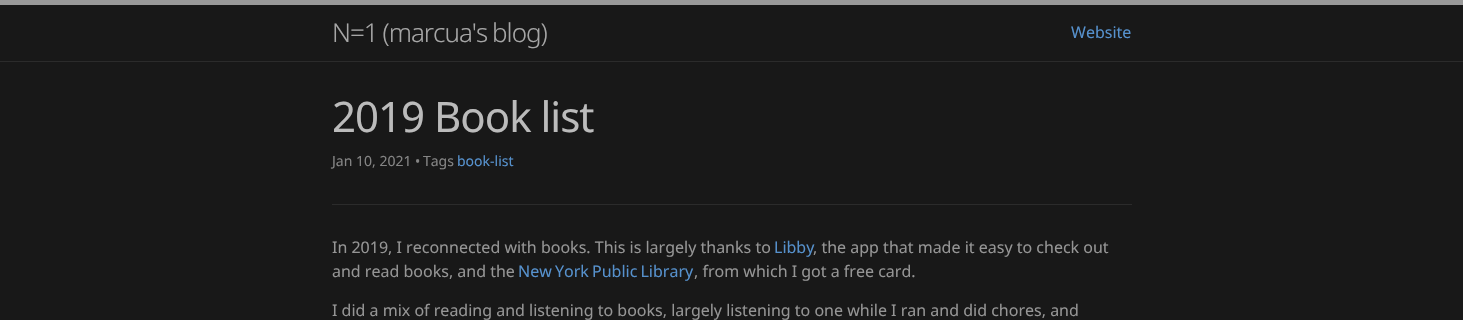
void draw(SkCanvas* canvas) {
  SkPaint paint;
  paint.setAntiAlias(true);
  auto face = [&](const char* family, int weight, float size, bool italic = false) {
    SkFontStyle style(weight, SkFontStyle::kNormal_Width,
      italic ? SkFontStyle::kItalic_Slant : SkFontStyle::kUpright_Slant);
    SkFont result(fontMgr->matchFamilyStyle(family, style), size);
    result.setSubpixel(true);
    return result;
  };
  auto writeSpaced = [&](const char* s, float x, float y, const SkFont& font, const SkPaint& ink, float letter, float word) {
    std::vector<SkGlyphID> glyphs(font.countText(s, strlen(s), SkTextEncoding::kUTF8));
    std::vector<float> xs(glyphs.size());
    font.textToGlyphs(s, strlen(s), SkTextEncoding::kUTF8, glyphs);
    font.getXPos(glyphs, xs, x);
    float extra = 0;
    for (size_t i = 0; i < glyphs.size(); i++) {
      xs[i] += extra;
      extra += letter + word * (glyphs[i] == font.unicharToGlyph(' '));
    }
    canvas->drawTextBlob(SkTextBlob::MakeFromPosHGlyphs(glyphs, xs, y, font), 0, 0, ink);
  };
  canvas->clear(0xff181818);
  {
    const struct { float x, y, w, h; SkColor color; } items[] = {
      {0, 0, 1463, 5, 0xff999999},
      {0, 61, 1463, 1, 0xff2b2b2b},
      {332, 204, 800, 1, 0xff2b2b2b},
    };
    for (auto [x, y, w, h, color] : items) {
      paint.setColor(color);
      canvas->drawRect(SkRect::MakeXYWH(x, y, w, h), paint);
    }
  }
  auto f0 = face("Noto Sans", 300, 26);
  paint.setColor(0xffa6a6a6);
  writeSpaced("N=1 (marcua's blog)", 332, 42, f0, paint, -1, -1);
  auto f1 = face("Noto Sans", 400, 16);
  paint.setColor(0xff5691cd);
  canvas->drawString("Website", 1071, 38, f1, paint);
  auto f2 = face("Noto Sans", 400, 42);
  paint.setColor(0xffbbbbbb);
  writeSpaced("2019 Book list", 332, 132, f2, paint, -1, 0);
  auto f3 = face("Noto Sans", 400, 14);
  paint.setColor(0xff858585);
  canvas->drawString("Jan 10, 2021", 332, 166, f3, paint);
  writeSpaced("• Tags", 415, 166, f3, paint, 0, -1);
  paint.setColor(0xff5691cd);
  canvas->drawString("book-list", 457, 166, f3, paint);
  paint.setColor(0xff959595);
  canvas->drawString("In 2019, I reconnected with books. This is largely thanks to", 332, 253, f1, paint);
  paint.setColor(0xff5691cd);
  canvas->drawString("Libby", 774, 253, f1, paint);
  paint.setColor(0xff959595);
  canvas->drawString(", the app that made it easy to check out", 813, 253, f1, paint);
  canvas->drawString("and read books, and the", 332, 277, f1, paint);
  paint.setColor(0xff5691cd);
  writeSpaced("New York Public Library", 518, 277, f1, paint, 0, -1);
  paint.setColor(0xff959595);
  canvas->drawString(", from which I got a free card.", 694, 277, f1, paint);
  canvas->drawString("I did a mix of reading and listening to books, largely listening to one while I ran and did chores, and", 332, 316, f1, paint);
}
